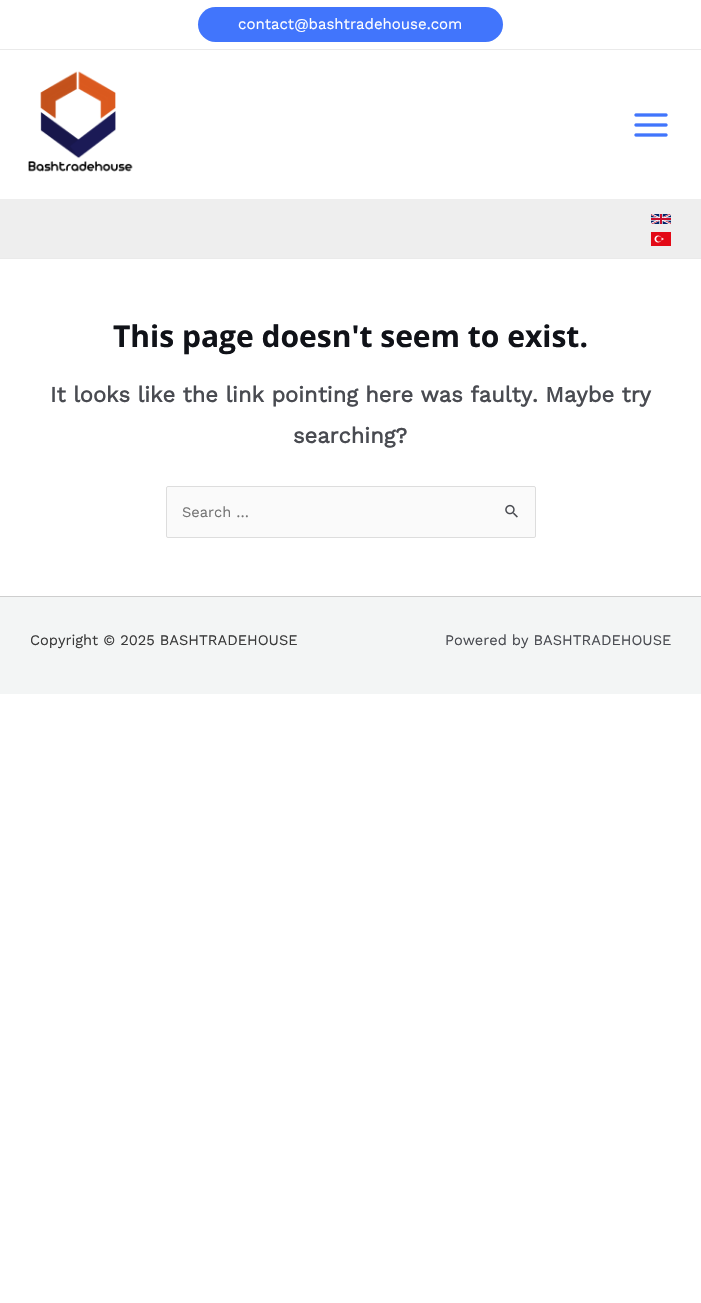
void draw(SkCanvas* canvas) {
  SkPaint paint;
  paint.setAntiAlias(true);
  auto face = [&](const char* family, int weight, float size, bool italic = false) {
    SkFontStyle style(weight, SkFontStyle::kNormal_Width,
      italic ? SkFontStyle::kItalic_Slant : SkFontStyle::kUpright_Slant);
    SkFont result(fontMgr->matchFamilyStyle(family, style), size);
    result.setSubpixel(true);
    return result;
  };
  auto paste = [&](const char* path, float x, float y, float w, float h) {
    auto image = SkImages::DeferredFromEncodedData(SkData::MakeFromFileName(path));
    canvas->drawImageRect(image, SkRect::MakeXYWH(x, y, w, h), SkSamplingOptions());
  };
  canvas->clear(0xffffffff);
  paint.setColor(0xffeaeaea);
  canvas->drawRect(SkRect::MakeXYWH(0, 49, 701, 1), paint);
  paint.setColor(0xff4175fc);
  canvas->drawRoundRect(SkRect::MakeXYWH(198, 7, 305, 35), 17.5f, 17.5f, paint);
  paste("img/1.png", 28, 71, 105, 101);
  paste("img/2.png", 634, 113, 34, 24);
  paint.setColor(0xffeeeeee);
  canvas->drawRect(SkRect::MakeXYWH(0, 199, 701, 59), paint);
  paint.setColor(0xffeaeaea);
  canvas->drawRect(SkRect::MakeXYWH(0, 258, 701, 1), paint);
  paste("img/3.png", 651, 214, 20, 10);
  paste("img/4.png", 651, 232, 20, 14);
  paint.setColor(0xfffafafa);
  canvas->drawRoundRect(SkRect::MakeXYWH(166.5f, 486.5f, 369, 51), 1.5f, 1.5f, paint);
  paint.setStroke(true);
  paint.setStrokeWidth(1);
  paint.setColor(0xffdddddd);
  canvas->drawRoundRect(SkRect::MakeXYWH(166.5f, 486.5f, 369, 51), 1.5f, 1.5f, paint);
  paste("img/5.png", 505, 504, 13, 14);
  paint.setStroke(false);
  paint.setColor(0xfff3f5f5);
  canvas->drawRect(SkRect::MakeXYWH(0, 597, 701, 97), paint);
  paint.setColor(0xffcecece);
  canvas->drawRect(SkRect::MakeXYWH(0, 596, 701, 1), paint);
  auto f0 = face("Work Sans", 400, 15);
  paint.setColor(0xffffffff);
  canvas->drawString("contact@bashtradehouse.com", 238, 29, f0, paint);
  auto f1 = face("Open Sans", 700, 30);
  paint.setColor(0xff101218);
  canvas->drawString("This page doesn't seem to exist.", 113, 347, f1, paint);
  auto f2 = face("Work Sans", 700, 21.9f);
  paint.setColor(0xff494b51);
  canvas->drawString("It looks like the link pointing here was faulty. Maybe try", 50, 402, f2, paint);
  canvas->drawString("searching?", 293, 443, f2, paint);
  auto f3 = face("Work Sans", 400, 14.6f);
  paint.setColor(0xff757575);
  canvas->drawString("Search …", 182, 517, f3, paint);
  paint.setColor(0xff3a3a3a);
  canvas->drawString("Copyright © 2025 BASHTRADEHOUSE", 30, 645, f3, paint);
  paint.setColor(0xff494b51);
  canvas->drawString("Powered by BASHTRADEHOUSE", 445, 645, f3, paint);
}
